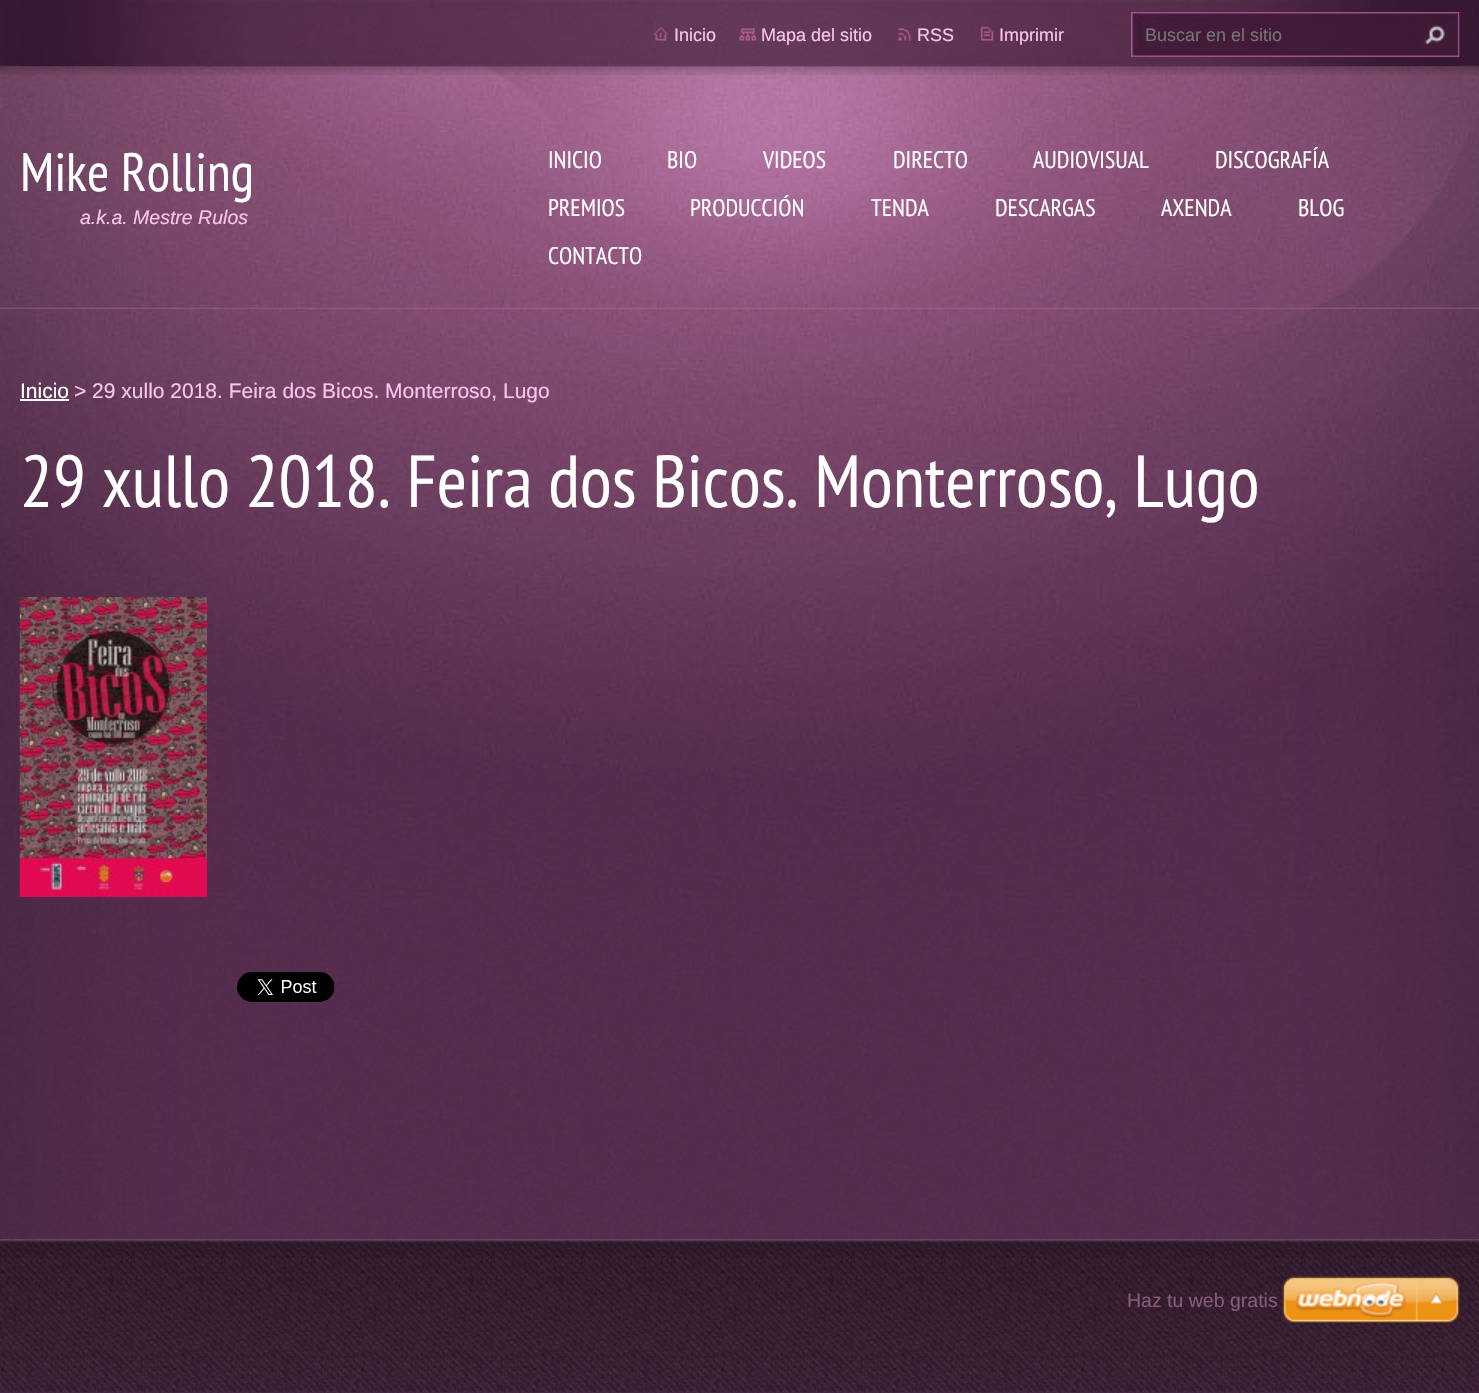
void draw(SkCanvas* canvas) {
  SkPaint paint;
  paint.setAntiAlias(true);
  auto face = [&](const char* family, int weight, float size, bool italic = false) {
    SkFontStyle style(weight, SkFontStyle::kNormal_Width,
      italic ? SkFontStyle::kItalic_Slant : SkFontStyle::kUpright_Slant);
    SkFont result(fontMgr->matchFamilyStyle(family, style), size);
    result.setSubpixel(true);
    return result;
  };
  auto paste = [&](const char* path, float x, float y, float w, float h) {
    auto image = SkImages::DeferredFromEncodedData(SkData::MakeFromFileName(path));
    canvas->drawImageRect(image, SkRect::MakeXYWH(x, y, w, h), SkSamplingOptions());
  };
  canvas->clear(0xffffffff);
  paste("img/1.png", 0, 900, 1479, 339);
  paste("img/2.png", 0, 65, 1479, 835);
  paste("img/3.png", 0, 307, 1479, 2);
  paste("img/4.png", 0, 0, 1479, 75);
  paste("img/5.png", 19, 0, 1440, 66);
  paste("img/6.png", 653, 26, 15, 15);
  paste("img/7.png", 739, 28, 18, 13);
  paste("img/8.png", 898, 28, 13, 13);
  paste("img/9.png", 980, 26, 14, 15);
  paste("img/10.png", 1131, 12, 329, 45);
  paste("img/11.png", 1424, 25, 21, 20);
  paint.setColor(0xffffffff);
  canvas->drawRect(SkRect::MakeXYWH(20, 399, 49, 2), paint);
  paste("img/12.png", 19, 597, 188, 300);
  paste("img/13.png", 237, 972, 98, 30);
  paste("img/14.png", 0, 1239, 1479, 154);
  paste("img/15.png", 1282, 1276, 178, 47);
  auto f0 = face("Liberation Sans", 400, 18);
  paint.setColor(0xfffbc5ec);
  {
    const struct { const char* s; float x, y; } items[] = {
      {"Inicio", 674, 41},
      {"Mapa del sitio", 761, 41},
      {"RSS", 917, 41},
      {"Imprimir", 999, 41},
    };
    for (auto [s, x, y] : items) {
      canvas->drawString(s, x, y, f0, paint);
    }
  }
  paint.setColor(0xff757575);
  canvas->drawString("Buscar en el sitio", 1145, 41, f0, paint);
  auto f1 = face("PT Sans Narrow", 400, 54);
  paint.setColor(0xffffffff);
  canvas->drawString("Mike Rolling", 20, 191, f1, paint);
  auto f2 = face("Liberation Sans", 400, 19.5f, true);
  paint.setColor(0xfffbc5ec);
  canvas->drawString("a.k.a. Mestre Rulos", 80, 224, f2, paint);
  auto f3 = face("PT Sans Narrow", 400, 24);
  paint.setColor(0xffffffff);
  {
    const struct { const char* s; float x, y; } items[] = {
      {"INICIO", 548, 168},
      {"BIO", 667, 168},
      {"VIDEOS", 763, 168},
      {"DIRECTO", 893, 168},
      {"AUDIOVISUAL", 1033, 168},
      {"DISCOGRAFÍA", 1215, 168},
      {"PREMIOS", 548, 216},
      {"PRODUCCIÓN", 690, 216},
      {"TENDA", 871, 216},
      {"DESCARGAS", 995, 216},
      {"AXENDA", 1161, 216},
      {"BLOG", 1298, 216},
      {"CONTACTO", 548, 264},
    };
    for (auto [s, x, y] : items) {
      canvas->drawString(s, x, y, f3, paint);
    }
  }
  auto f4 = face("Liberation Sans", 400, 21);
  canvas->drawString("Inicio", 20, 398, f4, paint);
  paint.setColor(0xfffbc5ec);
  canvas->drawString("> 29 xullo 2018. Feira dos Bicos. Monterroso, Lugo", 74, 398, f4, paint);
  auto f5 = face("PT Sans Narrow", 400, 73.5f);
  paint.setColor(0xffffffff);
  canvas->drawString("29 xullo 2018. Feira dos Bicos. Monterroso, Lugo", 20, 507, f5, paint);
  auto f6 = face("Liberation Sans", 400, 19.5f);
  paint.setColor(0xff865c7a);
  canvas->drawString("Haz tu web gratis", 1127, 1307, f6, paint);
}
